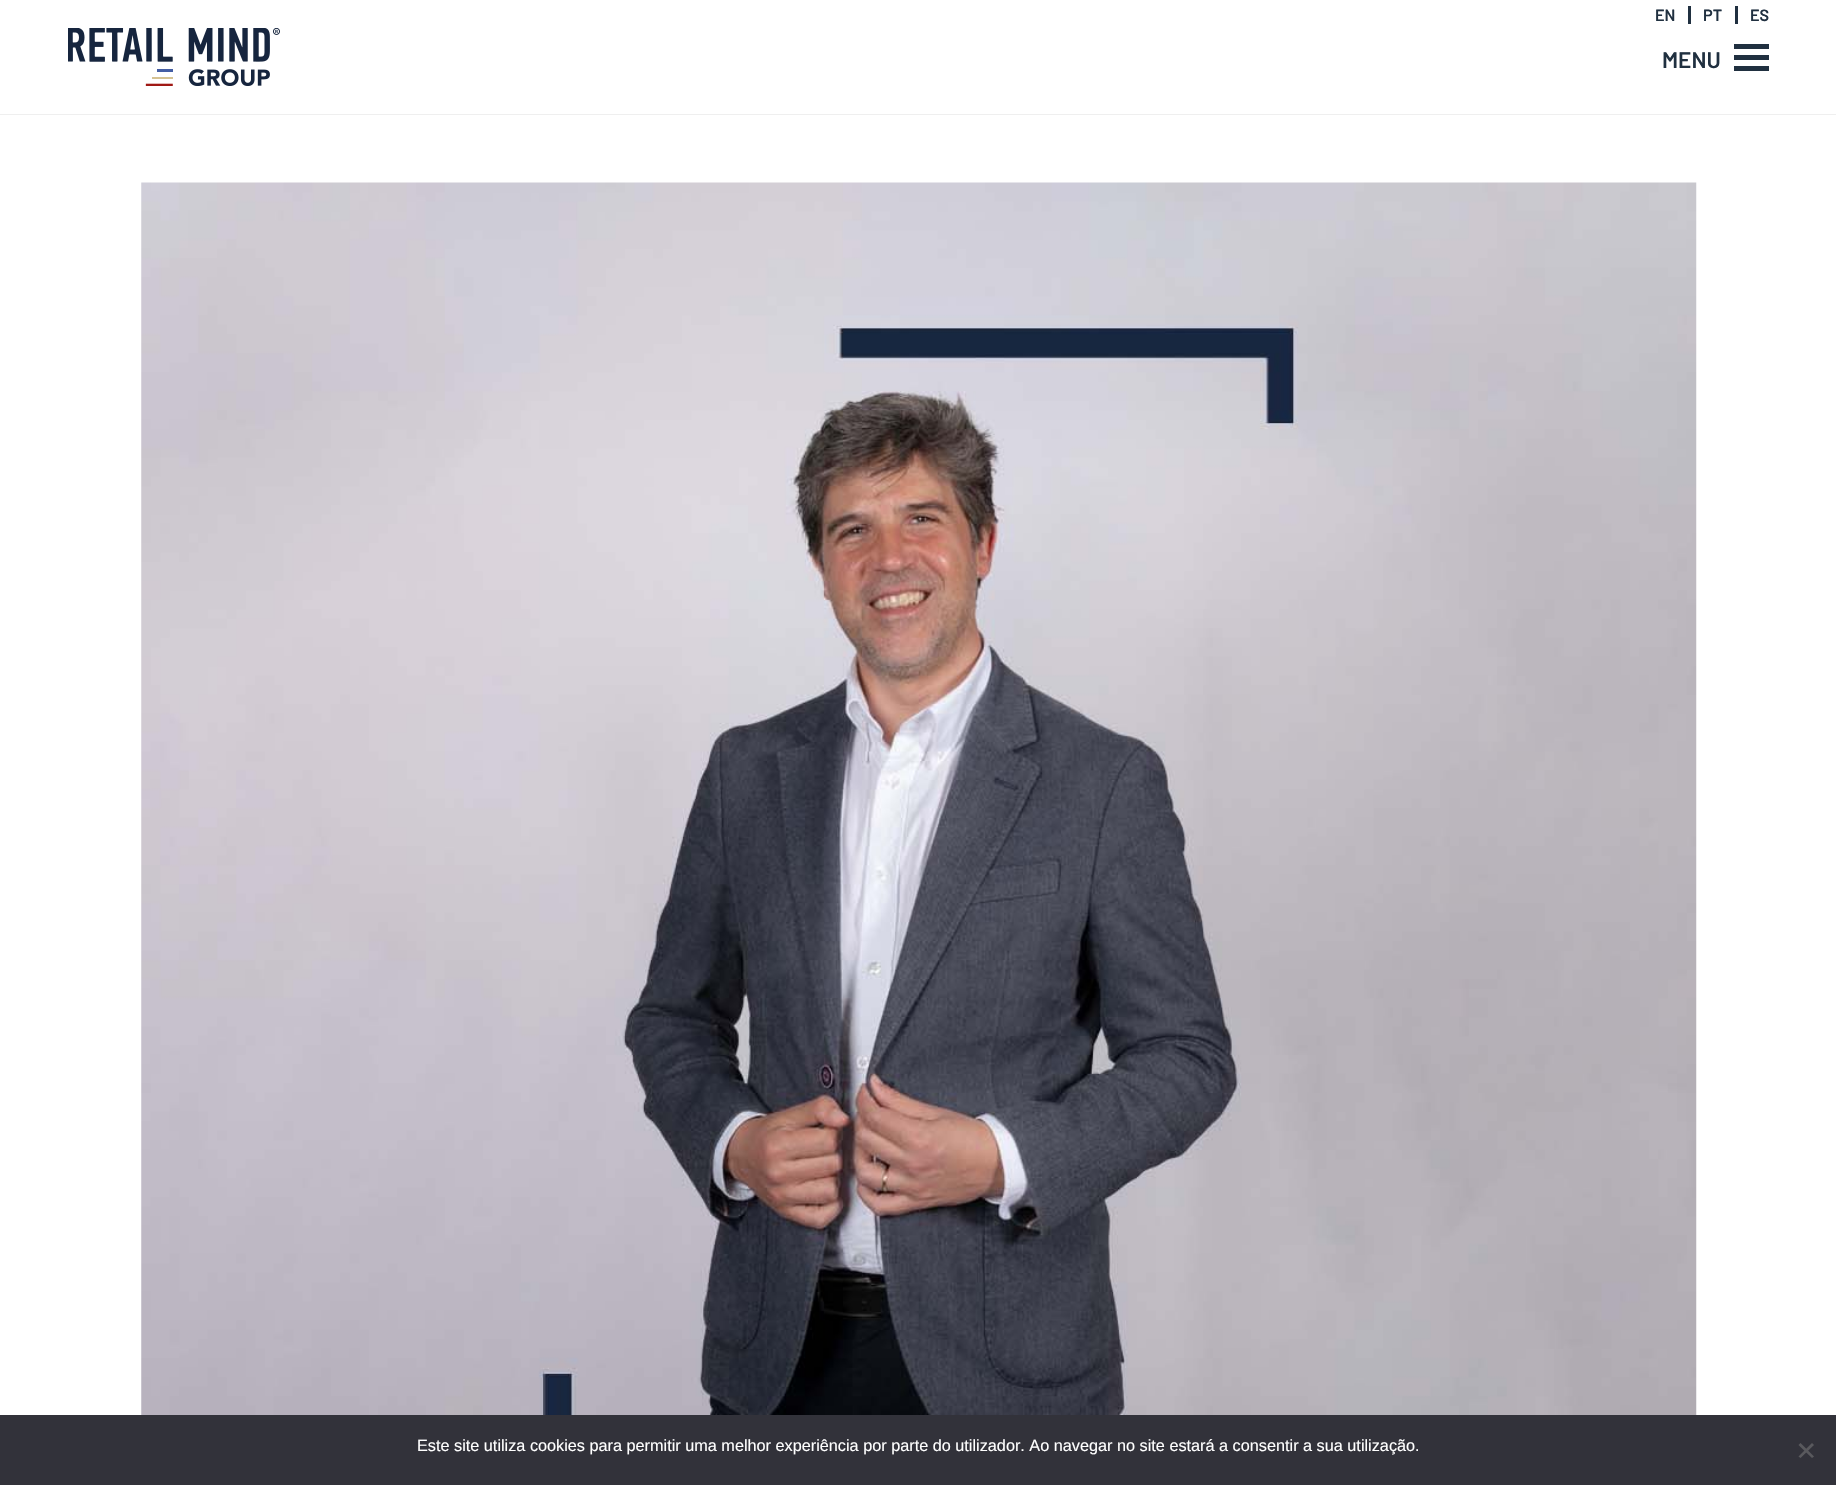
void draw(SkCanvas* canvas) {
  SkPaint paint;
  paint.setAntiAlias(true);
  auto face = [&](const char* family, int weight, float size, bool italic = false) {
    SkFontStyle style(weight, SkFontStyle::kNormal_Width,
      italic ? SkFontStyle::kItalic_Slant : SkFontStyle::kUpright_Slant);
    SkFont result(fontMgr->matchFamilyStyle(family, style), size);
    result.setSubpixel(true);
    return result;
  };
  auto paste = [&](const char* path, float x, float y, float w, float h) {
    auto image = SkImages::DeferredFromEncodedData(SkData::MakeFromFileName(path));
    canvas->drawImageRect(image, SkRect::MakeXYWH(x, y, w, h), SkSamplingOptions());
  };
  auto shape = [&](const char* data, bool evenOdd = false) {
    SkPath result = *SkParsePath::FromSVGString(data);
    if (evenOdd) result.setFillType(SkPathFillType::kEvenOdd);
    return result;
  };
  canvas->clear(0xffffffff);
  paint.setColor(0xff203040);
  canvas->drawRect(SkRect::MakeXYWH(1688, 6, 3, 18), paint);
  canvas->drawRect(SkRect::MakeXYWH(1735, 6, 3, 18), paint);
  paste("img/1.png", 68, 28, 212, 58);
  {
    const struct { float x, y, w, h; SkColor color; } items[] = {
      {1734, 44, 35, 5, 0xff203040},
      {1734, 55, 35, 5, 0xff203040},
      {1734, 66, 35, 5, 0xff203040},
      {0, 114, 1836, 1, 0xffefefef},
    };
    for (auto [x, y, w, h, color] : items) {
      paint.setColor(color);
      canvas->drawRect(SkRect::MakeXYWH(x, y, w, h), paint);
    }
  }
  paste("img/2.png", 141, 182, 1556, 1233);
  paint.setColor(0xff32323a);
  canvas->drawRect(SkRect::MakeXYWH(0, 1415, 1836, 70), paint);
  paint.setColor(0xff59595d);
  canvas->drawPath(shape("M1812 1443L1814 1445L1800.5 1458L1798.5 1456.5Z"), paint);
  canvas->drawPath(shape("M1798.5 1445L1800.5 1443L1814 1456.5L1812 1458Z"), paint);
  auto f0 = face("Barlow", 600, 16.25f);
  paint.setColor(0xff203040);
  {
    const struct { const char* s; float x, y; } items[] = {
      {"EN", 1655, 21},
      {"PT", 1703, 21},
      {"ES", 1750, 21},
    };
    for (auto [s, x, y] : items) {
      canvas->drawString(s, x, y, f0, paint);
    }
  }
  auto f1 = face("Barlow", 600, 22.5f);
  canvas->drawString("MENU", 1662, 68, f1, paint);
  auto f2 = face("Liberation Sans", 400, 16.25f);
  paint.setColor(0xffffffff);
  canvas->drawString("Este site utiliza cookies para permitir uma melhor experiência por parte do utilizador. Ao navegar no site estará a consentir a sua utilização.", 417, 1451, f2, paint);
}
